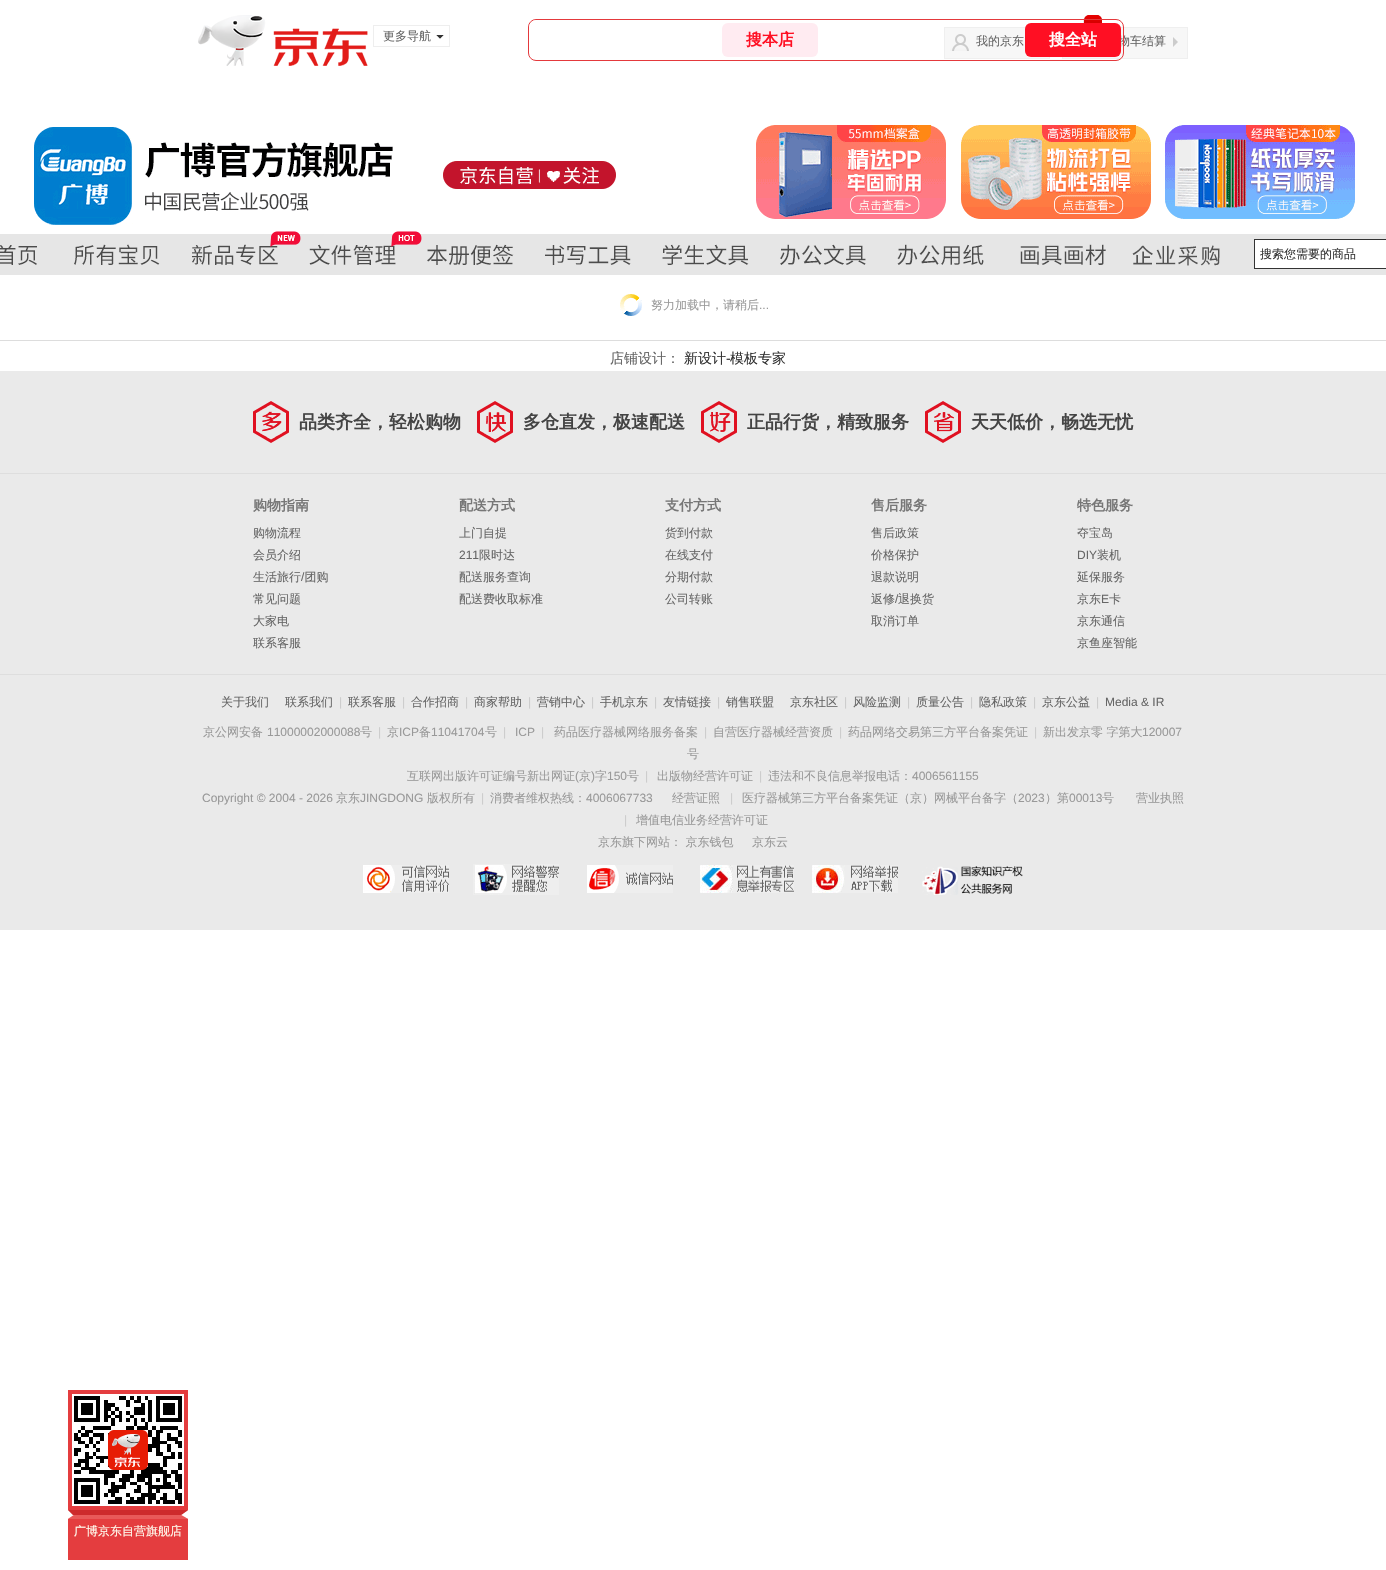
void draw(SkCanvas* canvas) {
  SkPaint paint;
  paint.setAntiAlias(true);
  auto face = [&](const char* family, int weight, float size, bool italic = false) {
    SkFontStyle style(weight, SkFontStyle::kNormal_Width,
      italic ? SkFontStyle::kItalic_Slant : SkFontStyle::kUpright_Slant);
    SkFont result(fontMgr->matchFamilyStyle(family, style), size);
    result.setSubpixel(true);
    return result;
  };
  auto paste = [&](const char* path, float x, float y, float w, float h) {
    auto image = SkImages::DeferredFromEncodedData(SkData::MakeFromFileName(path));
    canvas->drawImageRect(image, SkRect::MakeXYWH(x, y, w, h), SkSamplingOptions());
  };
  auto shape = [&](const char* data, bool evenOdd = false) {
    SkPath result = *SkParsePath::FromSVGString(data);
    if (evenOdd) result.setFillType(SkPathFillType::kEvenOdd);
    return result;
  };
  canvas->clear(0xffffffff);
  paste("img/1.png", 198, 15, 170, 51);
  paint.setStroke(true);
  paint.setStrokeWidth(1);
  paint.setColor(0xffeeeeee);
  canvas->drawRect(SkRect::MakeXYWH(373.5f, 25.5f, 76, 21), paint);
  paint.setStroke(false);
  paint.setColor(0xff333333);
  canvas->drawPath(shape("M436 35H444L440 39Z"), paint);
  paint.setColor(0xffffffff);
  canvas->drawPath(shape("M444 35V43L440 39ZM436 43V35L440 39Z"), paint);
  paint.setColor(0xfff7f7f7);
  canvas->drawRect(SkRect::MakeXYWH(945, 28, 104, 30), paint);
  paste("img/2.png", 950, 34, 19, 17);
  paint.setStroke(true);
  paint.setColor(0xffefefef);
  canvas->drawRect(SkRect::MakeXYWH(944.5f, 27.5f, 105, 31), paint);
  paint.setStroke(false);
  paint.setColor(0xfff7f7f7);
  canvas->drawRect(SkRect::MakeXYWH(1062.5f, 27.5f, 125, 31), paint);
  paint.setStroke(true);
  paint.setColor(0xffefefef);
  canvas->drawRect(SkRect::MakeXYWH(1062.5f, 27.5f, 125, 31), paint);
  paste("img/3.png", 1083, 15, 19, 8);
  paste("img/4.png", 1091, 15, 11, 8);
  paint.setStroke(false);
  paint.setColor(0xffcccccc);
  canvas->drawPath(shape("M1173 47V37L1178 42Z"), paint);
  paste("img/5.png", 34, 125, 1321, 100);
  paste("img/6.png", 0, 231, 1386, 44);
  paint.setColor(0xffffffff);
  canvas->drawRect(SkRect::MakeXYWH(1254.5f, 239.5f, 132, 29), paint);
  paint.setStroke(true);
  paint.setColor(0xff333333);
  canvas->drawRect(SkRect::MakeXYWH(1254.5f, 239.5f, 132, 29), paint);
  paste("img/7.png", 620, 294, 22, 22);
  paint.setStroke(false);
  paint.setColor(0xffdddddd);
  canvas->drawRect(SkRect::MakeXYWH(0, 340, 1386, 1), paint);
  paint.setColor(0xffeaeaea);
  canvas->drawRect(SkRect::MakeXYWH(0, 371, 1386, 559), paint);
  paste("img/8.png", 253, 401, 36, 42);
  paste("img/9.png", 477, 401, 36, 42);
  paste("img/10.png", 701, 401, 36, 42);
  paste("img/11.png", 925, 401, 36, 42);
  paint.setColor(0xffdedede);
  canvas->drawRect(SkRect::MakeXYWH(0, 473, 1386, 1), paint);
  canvas->drawRect(SkRect::MakeXYWH(0, 674, 1386, 1), paint);
  paste("img/12.png", 363, 865, 86, 28);
  paste("img/13.png", 473, 864, 86, 31);
  paste("img/14.png", 587, 865, 86, 28);
  paste("img/15.png", 700, 865, 94, 28);
  paste("img/16.png", 812, 865, 86, 28);
  paste("img/17.png", 922, 866, 101, 29);
  paint.setColor(0xffe43d3f);
  canvas->drawRect(SkRect::MakeXYWH(68, 1390, 120, 120), paint);
  paste("img/18.png", 72, 1394, 112, 112);
  paste("img/19.png", 68, 1510, 120, 9);
  canvas->drawRect(SkRect::MakeXYWH(68, 1519, 120, 41), paint);
  auto f0 = face("WenQuanYi Zen Hei", 500, 12);
  paint.setColor(0xff666666);
  {
    const struct { const char* s; float x, y; } items[] = {
      {"更多导航", 383, 40},
      {"我的京东", 976, 45},
      {"物车结算", 1118, 45},
    };
    for (auto [s, x, y] : items) {
      canvas->drawString(s, x, y, f0, paint);
    }
  }
  paint.setStroke(true);
  paint.setColor(0xffe4393c);
  canvas->drawRoundRect(SkRect::MakeXYWH(528.5f, 19.5f, 595, 41), 7.5f, 7.5f, paint);
  paint.setStroke(false);
  paint.setColor(0xffff0f23);
  canvas->drawRoundRect(SkRect::MakeXYWH(1025, 23, 96, 34), 6, 6, paint);
  auto f1 = face("WenQuanYi Zen Hei", 700, 16);
  paint.setColor(0xffffffff);
  canvas->drawString("搜全站", 1049, 45, f1, paint);
  canvas->drawPath(shape("M537 20H724V50H529V28C529 23.5 532.5 20 537 20Z"), paint);
  paint.setColor(0xffffebf1);
  canvas->drawRoundRect(SkRect::MakeXYWH(722, 23, 96, 34), 6, 6, paint);
  paint.setColor(0xffff0f23);
  canvas->drawString("搜本店", 746, 45, f1, paint);
  paint.setColor(0xff333333);
  canvas->drawString("搜索您需要的商品", 1260, 258, f0, paint);
  paint.setColor(0xff999999);
  canvas->drawString("努力加载中，请稍后", 651, 309, f0, paint);
  auto f2 = face("Liberation Sans", 400, 12);
  canvas->drawString("...", 759, 309, f2, paint);
  auto f3 = face("WenQuanYi Zen Hei", 500, 14);
  paint.setColor(0xff666666);
  canvas->drawString("店铺设计：", 610, 363, f3, paint);
  paint.setColor(0xff333333);
  canvas->drawString("新设计", 684, 363, f3, paint);
  auto f4 = face("Liberation Sans", 400, 14);
  canvas->drawString("-", 726, 363, f4, paint);
  canvas->drawString("模板专家", 730, 363, f3, paint);
  auto f5 = face("WenQuanYi Zen Hei", 700, 18);
  paint.setColor(0xff444444);
  {
    const struct { const char* s; float x, y; } items[] = {
      {"品类齐全，轻松购物", 299, 428},
      {"多仓直发，极速配送", 523, 428},
      {"正品行货，精致服务", 747, 428},
      {"天天低价，畅选无忧", 971, 428},
    };
    for (auto [s, x, y] : items) {
      canvas->drawString(s, x, y, f5, paint);
    }
  }
  auto f6 = face("WenQuanYi Zen Hei", 700, 14);
  paint.setColor(0xff777777);
  canvas->drawString("购物指南", 253, 510, f6, paint);
  paint.setColor(0xff666666);
  {
    const struct { const char* s; float x, y; } items[] = {
      {"购物流程", 253, 537},
      {"会员介绍", 253, 559},
      {"生活旅行 团购", 253, 581},
    };
    for (auto [s, x, y] : items) {
      canvas->drawString(s, x, y, f0, paint);
    }
  }
  canvas->drawString("/", 301, 581, f2, paint);
  {
    const struct { const char* s; float x, y; } items[] = {
      {"常见问题", 253, 603},
      {"大家电", 253, 625},
      {"联系客服", 253, 647},
    };
    for (auto [s, x, y] : items) {
      canvas->drawString(s, x, y, f0, paint);
    }
  }
  paint.setColor(0xff777777);
  canvas->drawString("配送方式", 459, 510, f6, paint);
  paint.setColor(0xff666666);
  canvas->drawString("上门自提", 459, 537, f0, paint);
  canvas->drawString("211", 459, 559, f2, paint);
  {
    const struct { const char* s; float x, y; } items[] = {
      {"限时达", 479, 559},
      {"配送服务查询", 459, 581},
      {"配送费收取标准", 459, 603},
    };
    for (auto [s, x, y] : items) {
      canvas->drawString(s, x, y, f0, paint);
    }
  }
  paint.setColor(0xff777777);
  canvas->drawString("支付方式", 665, 510, f6, paint);
  paint.setColor(0xff666666);
  {
    const struct { const char* s; float x, y; } items[] = {
      {"货到付款", 665, 537},
      {"在线支付", 665, 559},
      {"分期付款", 665, 581},
      {"公司转账", 665, 603},
    };
    for (auto [s, x, y] : items) {
      canvas->drawString(s, x, y, f0, paint);
    }
  }
  paint.setColor(0xff777777);
  canvas->drawString("售后服务", 871, 510, f6, paint);
  paint.setColor(0xff666666);
  {
    const struct { const char* s; float x, y; } items[] = {
      {"售后政策", 871, 537},
      {"价格保护", 871, 559},
      {"退款说明", 871, 581},
      {"返修", 871, 603},
    };
    for (auto [s, x, y] : items) {
      canvas->drawString(s, x, y, f0, paint);
    }
  }
  canvas->drawString("/", 895, 603, f2, paint);
  canvas->drawString("退换货", 898, 603, f0, paint);
  canvas->drawString("取消订单", 871, 625, f0, paint);
  paint.setColor(0xff777777);
  canvas->drawString("特色服务", 1077, 510, f6, paint);
  paint.setColor(0xff666666);
  canvas->drawString("夺宝岛", 1077, 537, f0, paint);
  canvas->drawString("DIY", 1077, 559, f2, paint);
  {
    const struct { const char* s; float x, y; } items[] = {
      {"装机", 1097, 559},
      {"延保服务", 1077, 581},
      {"京东", 1077, 603},
    };
    for (auto [s, x, y] : items) {
      canvas->drawString(s, x, y, f0, paint);
    }
  }
  canvas->drawString("E", 1101, 603, f2, paint);
  {
    const struct { const char* s; float x, y; } items[] = {
      {"卡", 1109, 603},
      {"京东通信", 1077, 625},
      {"京鱼座智能", 1077, 647},
      {"关于我们", 221, 706},
      {"联系我们", 285, 706},
    };
    for (auto [s, x, y] : items) {
      canvas->drawString(s, x, y, f0, paint);
    }
  }
  paint.setColor(0xffcccccc);
  canvas->drawString("|", 339, 706, f2, paint);
  paint.setColor(0xff666666);
  canvas->drawString("联系客服", 348, 706, f0, paint);
  paint.setColor(0xffcccccc);
  canvas->drawString("|", 402, 706, f2, paint);
  paint.setColor(0xff666666);
  canvas->drawString("合作招商", 411, 706, f0, paint);
  paint.setColor(0xffcccccc);
  canvas->drawString("|", 465, 706, f2, paint);
  paint.setColor(0xff666666);
  canvas->drawString("商家帮助", 474, 706, f0, paint);
  paint.setColor(0xffcccccc);
  canvas->drawString("|", 528, 706, f2, paint);
  paint.setColor(0xff666666);
  canvas->drawString("营销中心", 537, 706, f0, paint);
  paint.setColor(0xffcccccc);
  canvas->drawString("|", 591, 706, f2, paint);
  paint.setColor(0xff666666);
  canvas->drawString("手机京东", 600, 706, f0, paint);
  paint.setColor(0xffcccccc);
  canvas->drawString("|", 654, 706, f2, paint);
  paint.setColor(0xff666666);
  canvas->drawString("友情链接", 663, 706, f0, paint);
  paint.setColor(0xffcccccc);
  canvas->drawString("|", 717, 706, f2, paint);
  paint.setColor(0xff666666);
  canvas->drawString("销售联盟", 726, 706, f0, paint);
  canvas->drawString("京东社区", 790, 706, f0, paint);
  paint.setColor(0xffcccccc);
  canvas->drawString("|", 844, 706, f2, paint);
  paint.setColor(0xff666666);
  canvas->drawString("风险监测", 853, 706, f0, paint);
  paint.setColor(0xffcccccc);
  canvas->drawString("|", 907, 706, f2, paint);
  paint.setColor(0xff666666);
  canvas->drawString("质量公告", 916, 706, f0, paint);
  paint.setColor(0xffcccccc);
  canvas->drawString("|", 970, 706, f2, paint);
  paint.setColor(0xff666666);
  canvas->drawString("隐私政策", 979, 706, f0, paint);
  paint.setColor(0xffcccccc);
  canvas->drawString("|", 1033, 706, f2, paint);
  paint.setColor(0xff666666);
  canvas->drawString("京东公益", 1042, 706, f0, paint);
  paint.setColor(0xffcccccc);
  canvas->drawString("|", 1096, 706, f2, paint);
  paint.setColor(0xff666666);
  canvas->drawString("Media & IR", 1105, 706, f2, paint);
  paint.setColor(0xff999999);
  canvas->drawString("京公网安备", 203, 736, f0, paint);
  canvas->drawString("11000002000088", 267, 736, f2, paint);
  canvas->drawString("号", 360, 736, f0, paint);
  paint.setColor(0xffcccccc);
  canvas->drawString("|", 378, 736, f2, paint);
  paint.setColor(0xff999999);
  canvas->drawString("京", 387, 736, f0, paint);
  canvas->drawString("ICP", 399, 736, f2, paint);
  canvas->drawString("备", 419, 736, f0, paint);
  canvas->drawString("11041704", 431, 736, f2, paint);
  canvas->drawString("号", 485, 736, f0, paint);
  paint.setColor(0xffcccccc);
  canvas->drawString("|", 503, 736, f2, paint);
  paint.setColor(0xff999999);
  canvas->drawString("ICP", 515, 736, f2, paint);
  paint.setColor(0xffcccccc);
  canvas->drawString("|", 541, 736, f2, paint);
  paint.setColor(0xff999999);
  canvas->drawString("药品医疗器械网络服务备案", 554, 736, f0, paint);
  paint.setColor(0xffcccccc);
  canvas->drawString("|", 704, 736, f2, paint);
  paint.setColor(0xff999999);
  canvas->drawString("自营医疗器械经营资质", 713, 736, f0, paint);
  paint.setColor(0xffcccccc);
  canvas->drawString("|", 839, 736, f2, paint);
  paint.setColor(0xff999999);
  canvas->drawString("药品网络交易第三方平台备案凭证", 848, 736, f0, paint);
  paint.setColor(0xffcccccc);
  canvas->drawString("|", 1034, 736, f2, paint);
  paint.setColor(0xff999999);
  canvas->drawString("新出发京零 字第大", 1043, 736, f0, paint);
  canvas->drawString("120007", 1142, 736, f2, paint);
  canvas->drawString("号", 687, 758, f0, paint);
  canvas->drawString("互联网出版许可证编号新出网证", 407, 780, f0, paint);
  canvas->drawString("(", 575, 780, f2, paint);
  canvas->drawString("京", 579, 780, f0, paint);
  canvas->drawString(")", 591, 780, f2, paint);
  canvas->drawString("字", 595, 780, f0, paint);
  canvas->drawString("150", 607, 780, f2, paint);
  canvas->drawString("号", 627, 780, f0, paint);
  paint.setColor(0xffcccccc);
  canvas->drawString("|", 645, 780, f2, paint);
  paint.setColor(0xff999999);
  canvas->drawString("出版物经营许可证", 657, 780, f0, paint);
  paint.setColor(0xffcccccc);
  canvas->drawString("|", 759, 780, f2, paint);
  paint.setColor(0xff999999);
  canvas->drawString("违法和不良信息举报电话：", 768, 780, f0, paint);
  canvas->drawString("4006561155", 912, 780, f2, paint);
  canvas->drawString("Copyright © 2004 - 2026", 202, 802, f2, paint);
  canvas->drawString("京东", 336, 802, f0, paint);
  canvas->drawString("JINGDONG", 360, 802, f2, paint);
  canvas->drawString("版权所有", 427, 802, f0, paint);
  paint.setColor(0xffcccccc);
  canvas->drawString("|", 481, 802, f2, paint);
  paint.setColor(0xff999999);
  canvas->drawString("消费者维权热线：", 490, 802, f0, paint);
  canvas->drawString("4006067733", 586, 802, f2, paint);
  canvas->drawString("经营证照", 672, 802, f0, paint);
  paint.setColor(0xffcccccc);
  canvas->drawString("|", 730, 802, f2, paint);
  paint.setColor(0xff999999);
  canvas->drawString("医疗器械第三方平台备案凭证（京）网械平台备字（", 742, 802, f0, paint);
  canvas->drawString("2023", 1018, 802, f2, paint);
  canvas->drawString("）第", 1045, 802, f0, paint);
  canvas->drawString("00013", 1069, 802, f2, paint);
  canvas->drawString("号", 1102, 802, f0, paint);
  canvas->drawString("营业执照", 1136, 802, f0, paint);
  paint.setColor(0xffcccccc);
  canvas->drawString("|", 624, 824, f2, paint);
  paint.setColor(0xff999999);
  {
    const struct { const char* s; float x, y; } items[] = {
      {"增值电信业务经营许可证", 636, 824},
      {"京东旗下网站： 京东钱包", 598, 846},
      {"京东云", 752, 846},
    };
    for (auto [s, x, y] : items) {
      canvas->drawString(s, x, y, f0, paint);
    }
  }
  paint.setColor(0xfffffbee);
  canvas->drawString("广博京东自营旗舰店", 74, 1535, f0, paint);
}
